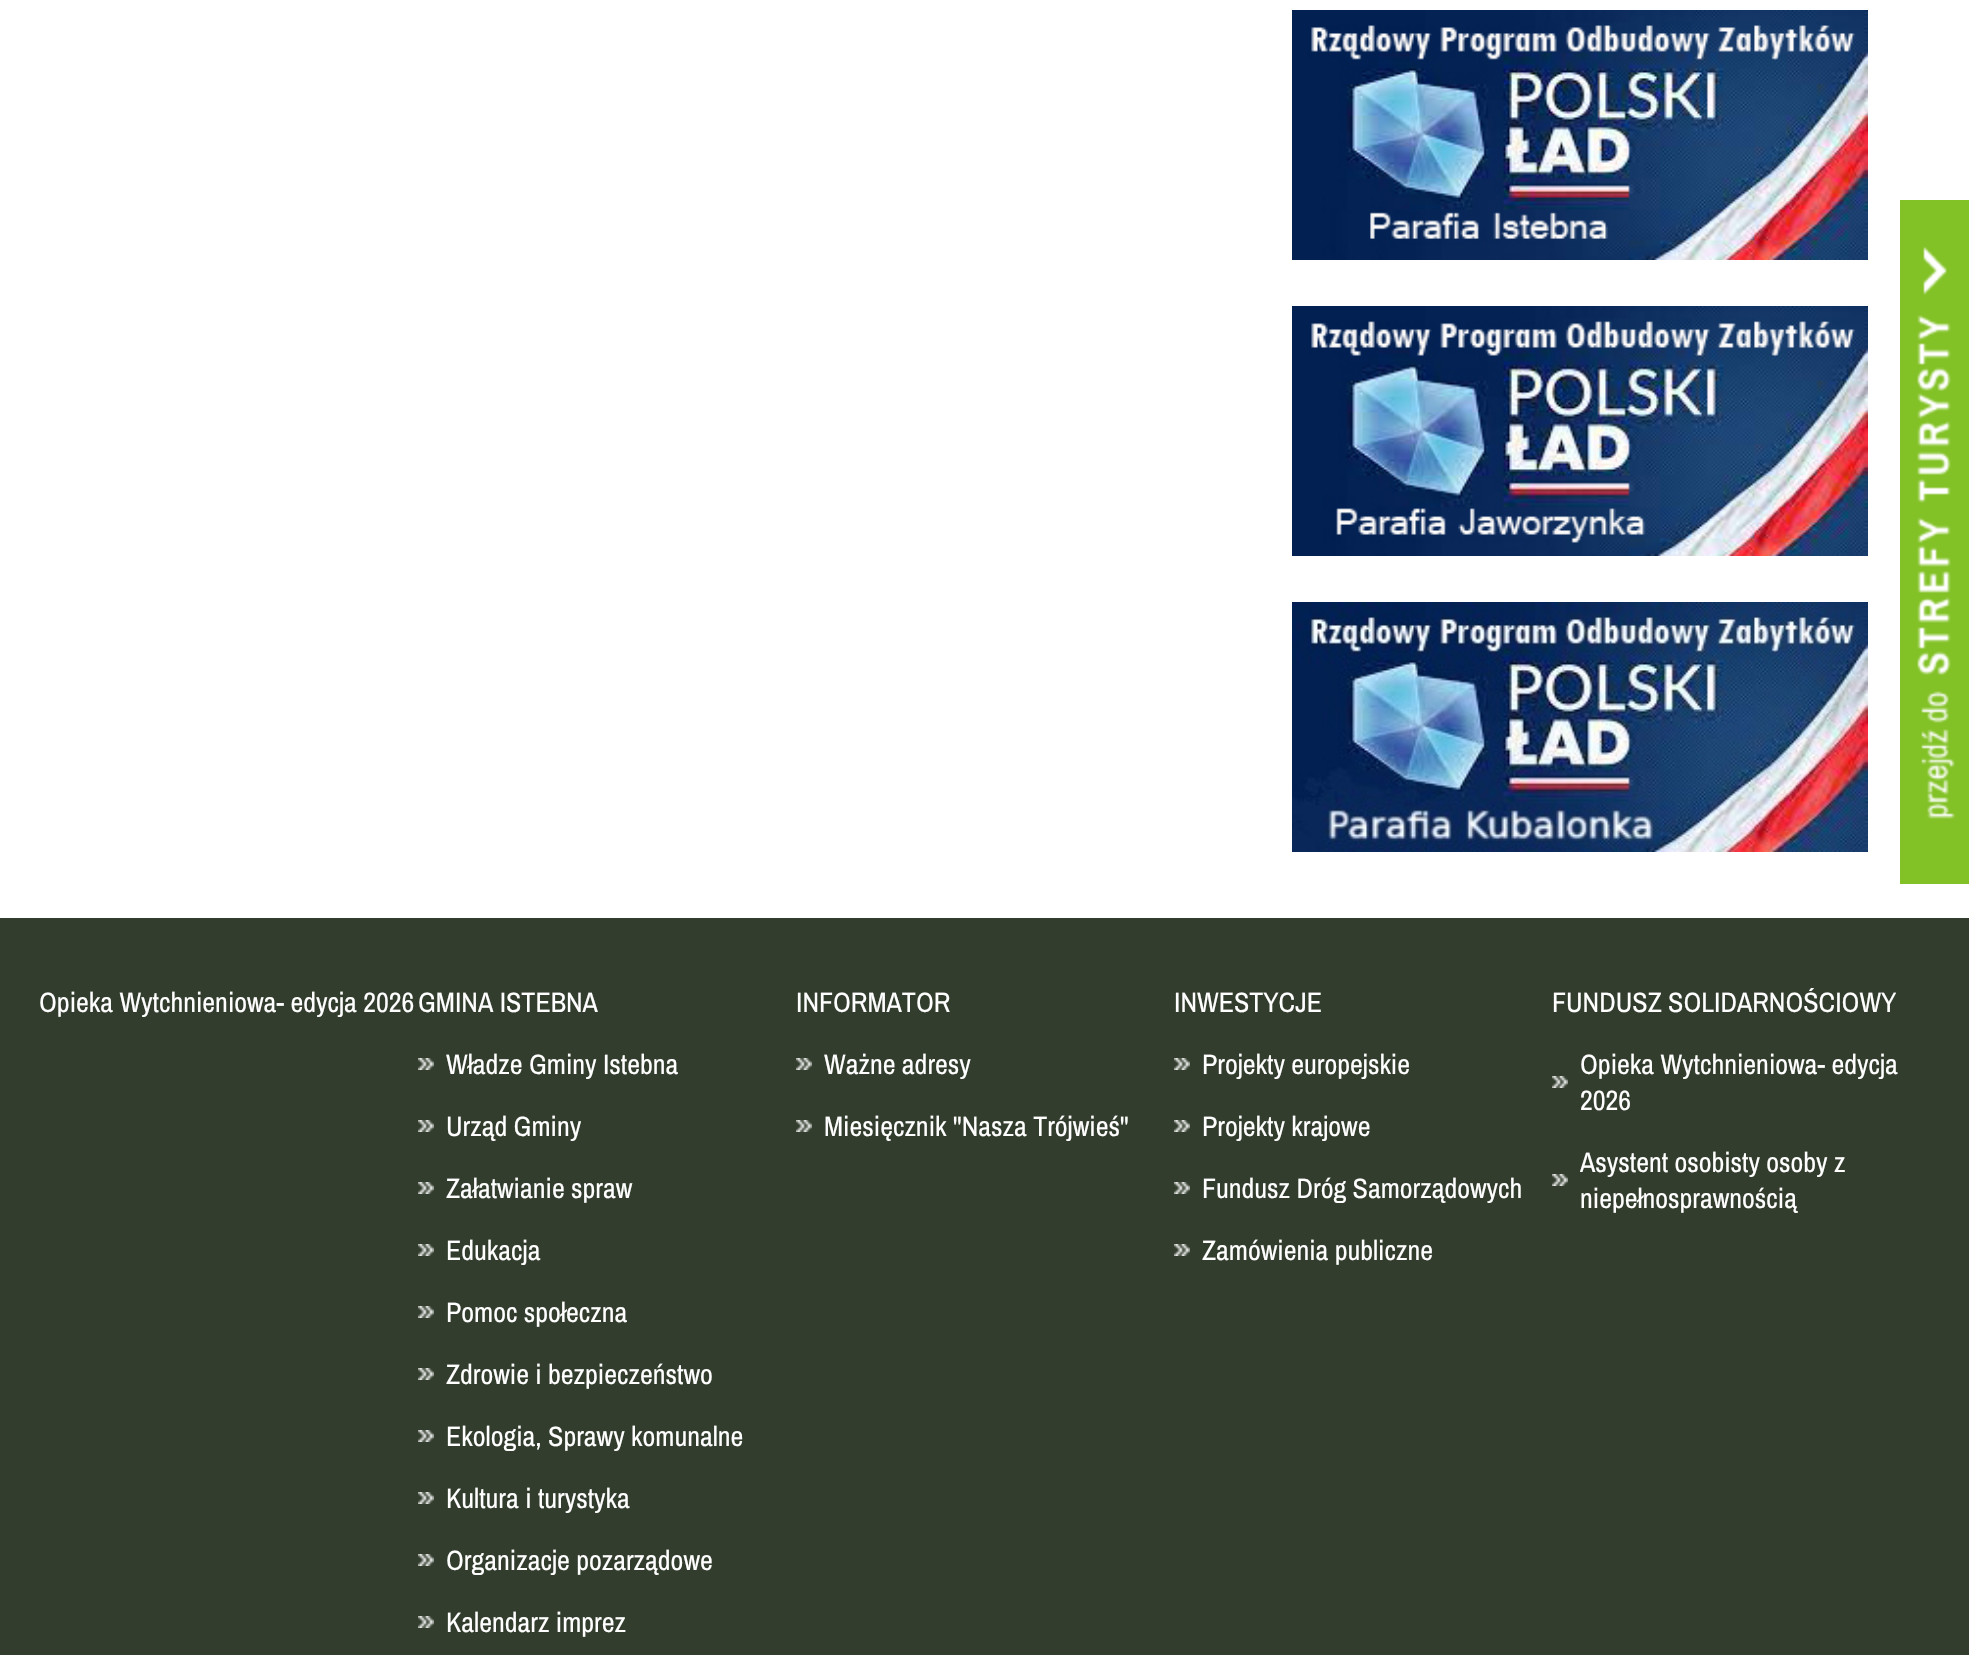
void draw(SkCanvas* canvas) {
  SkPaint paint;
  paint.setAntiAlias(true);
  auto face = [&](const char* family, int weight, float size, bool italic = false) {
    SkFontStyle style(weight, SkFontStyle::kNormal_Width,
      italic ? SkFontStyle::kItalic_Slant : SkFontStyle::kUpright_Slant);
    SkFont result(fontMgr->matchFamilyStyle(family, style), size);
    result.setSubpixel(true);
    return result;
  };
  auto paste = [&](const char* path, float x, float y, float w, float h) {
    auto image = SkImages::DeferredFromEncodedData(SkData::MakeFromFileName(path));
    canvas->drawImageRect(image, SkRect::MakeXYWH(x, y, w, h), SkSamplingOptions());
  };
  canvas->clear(0xffffffff);
  paste("img/1.png", 1292, 10, 576, 250);
  paste("img/2.png", 1292, 306, 576, 250);
  paste("img/3.png", 1292, 602, 576, 250);
  paste("img/4.png", 1900, 200, 69, 684);
  paint.setColor(0xff323d2d);
  canvas->drawRect(SkRect::MakeXYWH(0, 918, 1969, 737), paint);
  paste("img/5.png", 418, 1058, 16, 12);
  paste("img/5.png", 418, 1120, 16, 12);
  paste("img/5.png", 418, 1182, 16, 12);
  paste("img/5.png", 418, 1244, 16, 12);
  paste("img/5.png", 418, 1306, 16, 12);
  paste("img/5.png", 418, 1368, 16, 12);
  paste("img/5.png", 418, 1430, 16, 12);
  paste("img/5.png", 418, 1492, 16, 12);
  paste("img/5.png", 418, 1554, 16, 12);
  paste("img/5.png", 418, 1616, 16, 12);
  paste("img/5.png", 796, 1058, 16, 12);
  paste("img/5.png", 796, 1120, 16, 12);
  paste("img/5.png", 1174, 1058, 16, 12);
  paste("img/5.png", 1174, 1120, 16, 12);
  paste("img/5.png", 1174, 1182, 16, 12);
  paste("img/5.png", 1174, 1244, 16, 12);
  paste("img/5.png", 1552, 1076, 16, 12);
  paste("img/5.png", 1552, 1174, 16, 12);
  auto f0 = face("Archivo Narrow", 400, 28);
  paint.setColor(0xffffffff);
  {
    const struct { const char* s; float x, y; } items[] = {
      {"Opieka Wytchnieniowa- edycja 2026", 39, 1012},
      {"GMINA ISTEBNA", 418, 1012},
      {"Władze Gminy Istebna", 446, 1074},
      {"Urząd Gminy", 446, 1136},
      {"Załatwianie spraw", 446, 1198},
      {"Edukacja", 446, 1260},
      {"Pomoc społeczna", 446, 1322},
      {"Zdrowie i bezpieczeństwo", 446, 1384},
      {"Ekologia, Sprawy komunalne", 446, 1446},
      {"Kultura i turystyka", 446, 1508},
      {"Organizacje pozarządowe", 446, 1570},
      {"Kalendarz imprez", 446, 1632},
      {"INFORMATOR", 796, 1012},
      {"Ważne adresy", 824, 1074},
      {"Miesięcznik ''Nasza Trójwieś''", 824, 1136},
      {"INWESTYCJE", 1174, 1012},
      {"Projekty europejskie", 1202, 1074},
      {"Projekty krajowe", 1202, 1136},
      {"Fundusz Dróg Samorządowych", 1202, 1198},
      {"Zamówienia publiczne", 1202, 1260},
      {"FUNDUSZ SOLIDARNOŚCIOWY", 1552, 1012},
      {"Opieka Wytchnieniowa- edycja", 1580, 1074},
      {"2026", 1580, 1110},
      {"Asystent osobisty osoby z", 1580, 1172},
      {"niepełnosprawnością", 1580, 1208},
    };
    for (auto [s, x, y] : items) {
      canvas->drawString(s, x, y, f0, paint);
    }
  }
}
